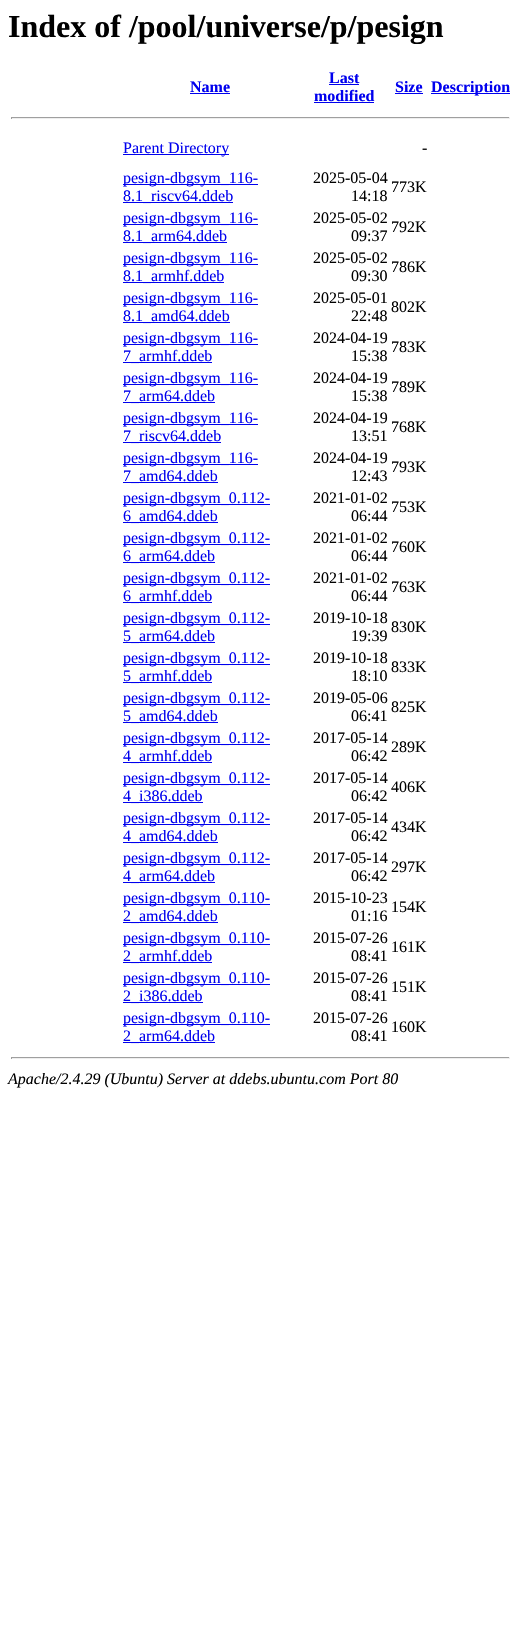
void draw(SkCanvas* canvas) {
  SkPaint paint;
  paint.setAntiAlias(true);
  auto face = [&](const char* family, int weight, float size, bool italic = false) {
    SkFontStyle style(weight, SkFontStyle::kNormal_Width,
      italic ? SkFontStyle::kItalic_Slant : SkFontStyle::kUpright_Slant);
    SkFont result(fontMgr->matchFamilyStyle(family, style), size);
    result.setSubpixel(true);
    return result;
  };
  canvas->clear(0xffffffff);
  {
    const struct { float x, y, w, h; SkColor color; } items[] = {
      {190, 93, 40, 1, 0xff0000ee},
      {329, 84, 30, 1, 0xff0000ee},
      {314, 102, 60, 1, 0xff0000ee},
      {395, 93, 28, 1, 0xff0000ee},
      {431, 93, 79, 1, 0xff0000ee},
      {11, 117, 499, 1, 0xff9f9f9f},
      {509, 117, 1, 2, 0xffeeeeee},
      {11, 118, 499, 1, 0xffeeeeee},
      {11, 117, 1, 2, 0xff9f9f9f},
      {123, 154, 106, 1, 0xff0000ee},
      {123, 184, 135, 1, 0xff0000ee},
      {123, 202, 110, 1, 0xff0000ee},
      {123, 224, 135, 1, 0xff0000ee},
      {123, 242, 104, 1, 0xff0000ee},
      {123, 264, 135, 1, 0xff0000ee},
      {123, 282, 101, 1, 0xff0000ee},
      {123, 304, 135, 1, 0xff0000ee},
      {123, 322, 107, 1, 0xff0000ee},
      {123, 344, 135, 1, 0xff0000ee},
      {123, 362, 89, 1, 0xff0000ee},
      {123, 384, 135, 1, 0xff0000ee},
      {123, 402, 92, 1, 0xff0000ee},
      {123, 424, 135, 1, 0xff0000ee},
      {123, 442, 98, 1, 0xff0000ee},
      {123, 464, 135, 1, 0xff0000ee},
      {123, 482, 95, 1, 0xff0000ee},
      {123, 504, 147, 1, 0xff0000ee},
      {123, 522, 95, 1, 0xff0000ee},
      {123, 544, 147, 1, 0xff0000ee},
      {123, 562, 92, 1, 0xff0000ee},
      {123, 584, 147, 1, 0xff0000ee},
      {123, 602, 89, 1, 0xff0000ee},
      {123, 624, 147, 1, 0xff0000ee},
      {123, 642, 92, 1, 0xff0000ee},
      {123, 664, 147, 1, 0xff0000ee},
      {123, 682, 89, 1, 0xff0000ee},
      {123, 704, 147, 1, 0xff0000ee},
      {123, 722, 95, 1, 0xff0000ee},
      {123, 744, 147, 1, 0xff0000ee},
      {123, 762, 89, 1, 0xff0000ee},
      {123, 784, 147, 1, 0xff0000ee},
      {123, 802, 80, 1, 0xff0000ee},
      {123, 824, 147, 1, 0xff0000ee},
      {123, 842, 95, 1, 0xff0000ee},
      {123, 864, 147, 1, 0xff0000ee},
      {123, 882, 92, 1, 0xff0000ee},
      {123, 904, 147, 1, 0xff0000ee},
      {123, 922, 95, 1, 0xff0000ee},
      {123, 944, 147, 1, 0xff0000ee},
      {123, 962, 89, 1, 0xff0000ee},
      {123, 984, 147, 1, 0xff0000ee},
      {123, 1002, 80, 1, 0xff0000ee},
      {123, 1024, 147, 1, 0xff0000ee},
      {123, 1042, 92, 1, 0xff0000ee},
      {11, 1057, 499, 1, 0xff9f9f9f},
      {509, 1057, 1, 2, 0xffeeeeee},
      {11, 1058, 499, 1, 0xffeeeeee},
      {11, 1057, 1, 2, 0xff9f9f9f},
    };
    for (auto [x, y, w, h, color] : items) {
      paint.setColor(color);
      canvas->drawRect(SkRect::MakeXYWH(x, y, w, h), paint);
    }
  }
  auto f0 = face("Liberation Serif", 700, 32);
  paint.setColor(0xff000000);
  canvas->drawString("Index of /pool/universe/p/pesign", 8, 37, f0, paint);
  auto f1 = face("Liberation Serif", 700, 16);
  paint.setColor(0xff0000ee);
  {
    const struct { const char* s; float x, y; } items[] = {
      {"Name", 190, 92},
      {"Last", 329, 83},
      {"modified", 314, 101},
      {"Size", 395, 92},
      {"Description", 431, 92},
    };
    for (auto [s, x, y] : items) {
      canvas->drawString(s, x, y, f1, paint);
    }
  }
  auto f2 = face("Liberation Serif", 400, 16);
  canvas->drawString("Parent Directory", 123, 153, f2, paint);
  paint.setColor(0xff000000);
  canvas->drawString("-", 422, 153, f2, paint);
  paint.setColor(0xff0000ee);
  canvas->drawString("pesign-dbgsym_116-", 123, 183, f2, paint);
  canvas->drawString("8.1_riscv64.ddeb", 123, 201, f2, paint);
  paint.setColor(0xff000000);
  {
    const struct { const char* s; float x, y; } items[] = {
      {"2025-05-04", 313, 183},
      {"14:18", 351, 201},
      {"773K", 391, 192},
    };
    for (auto [s, x, y] : items) {
      canvas->drawString(s, x, y, f2, paint);
    }
  }
  paint.setColor(0xff0000ee);
  canvas->drawString("pesign-dbgsym_116-", 123, 223, f2, paint);
  canvas->drawString("8.1_arm64.ddeb", 123, 241, f2, paint);
  paint.setColor(0xff000000);
  {
    const struct { const char* s; float x, y; } items[] = {
      {"2025-05-02", 313, 223},
      {"09:37", 351, 241},
      {"792K", 391, 232},
    };
    for (auto [s, x, y] : items) {
      canvas->drawString(s, x, y, f2, paint);
    }
  }
  paint.setColor(0xff0000ee);
  canvas->drawString("pesign-dbgsym_116-", 123, 263, f2, paint);
  canvas->drawString("8.1_armhf.ddeb", 123, 281, f2, paint);
  paint.setColor(0xff000000);
  {
    const struct { const char* s; float x, y; } items[] = {
      {"2025-05-02", 313, 263},
      {"09:30", 351, 281},
      {"786K", 391, 272},
    };
    for (auto [s, x, y] : items) {
      canvas->drawString(s, x, y, f2, paint);
    }
  }
  paint.setColor(0xff0000ee);
  canvas->drawString("pesign-dbgsym_116-", 123, 303, f2, paint);
  canvas->drawString("8.1_amd64.ddeb", 123, 321, f2, paint);
  paint.setColor(0xff000000);
  {
    const struct { const char* s; float x, y; } items[] = {
      {"2025-05-01", 313, 303},
      {"22:48", 351, 321},
      {"802K", 391, 312},
    };
    for (auto [s, x, y] : items) {
      canvas->drawString(s, x, y, f2, paint);
    }
  }
  paint.setColor(0xff0000ee);
  canvas->drawString("pesign-dbgsym_116-", 123, 343, f2, paint);
  canvas->drawString("7_armhf.ddeb", 123, 361, f2, paint);
  paint.setColor(0xff000000);
  {
    const struct { const char* s; float x, y; } items[] = {
      {"2024-04-19", 313, 343},
      {"15:38", 351, 361},
      {"783K", 391, 352},
    };
    for (auto [s, x, y] : items) {
      canvas->drawString(s, x, y, f2, paint);
    }
  }
  paint.setColor(0xff0000ee);
  canvas->drawString("pesign-dbgsym_116-", 123, 383, f2, paint);
  canvas->drawString("7_arm64.ddeb", 123, 401, f2, paint);
  paint.setColor(0xff000000);
  {
    const struct { const char* s; float x, y; } items[] = {
      {"2024-04-19", 313, 383},
      {"15:38", 351, 401},
      {"789K", 391, 392},
    };
    for (auto [s, x, y] : items) {
      canvas->drawString(s, x, y, f2, paint);
    }
  }
  paint.setColor(0xff0000ee);
  canvas->drawString("pesign-dbgsym_116-", 123, 423, f2, paint);
  canvas->drawString("7_riscv64.ddeb", 123, 441, f2, paint);
  paint.setColor(0xff000000);
  {
    const struct { const char* s; float x, y; } items[] = {
      {"2024-04-19", 313, 423},
      {"13:51", 351, 441},
      {"768K", 391, 432},
    };
    for (auto [s, x, y] : items) {
      canvas->drawString(s, x, y, f2, paint);
    }
  }
  paint.setColor(0xff0000ee);
  canvas->drawString("pesign-dbgsym_116-", 123, 463, f2, paint);
  canvas->drawString("7_amd64.ddeb", 123, 481, f2, paint);
  paint.setColor(0xff000000);
  {
    const struct { const char* s; float x, y; } items[] = {
      {"2024-04-19", 313, 463},
      {"12:43", 351, 481},
      {"793K", 391, 472},
    };
    for (auto [s, x, y] : items) {
      canvas->drawString(s, x, y, f2, paint);
    }
  }
  paint.setColor(0xff0000ee);
  canvas->drawString("pesign-dbgsym_0.112-", 123, 503, f2, paint);
  canvas->drawString("6_amd64.ddeb", 123, 521, f2, paint);
  paint.setColor(0xff000000);
  {
    const struct { const char* s; float x, y; } items[] = {
      {"2021-01-02", 313, 503},
      {"06:44", 351, 521},
      {"753K", 391, 512},
    };
    for (auto [s, x, y] : items) {
      canvas->drawString(s, x, y, f2, paint);
    }
  }
  paint.setColor(0xff0000ee);
  canvas->drawString("pesign-dbgsym_0.112-", 123, 543, f2, paint);
  canvas->drawString("6_arm64.ddeb", 123, 561, f2, paint);
  paint.setColor(0xff000000);
  {
    const struct { const char* s; float x, y; } items[] = {
      {"2021-01-02", 313, 543},
      {"06:44", 351, 561},
      {"760K", 391, 552},
    };
    for (auto [s, x, y] : items) {
      canvas->drawString(s, x, y, f2, paint);
    }
  }
  paint.setColor(0xff0000ee);
  canvas->drawString("pesign-dbgsym_0.112-", 123, 583, f2, paint);
  canvas->drawString("6_armhf.ddeb", 123, 601, f2, paint);
  paint.setColor(0xff000000);
  {
    const struct { const char* s; float x, y; } items[] = {
      {"2021-01-02", 313, 583},
      {"06:44", 351, 601},
      {"763K", 391, 592},
    };
    for (auto [s, x, y] : items) {
      canvas->drawString(s, x, y, f2, paint);
    }
  }
  paint.setColor(0xff0000ee);
  canvas->drawString("pesign-dbgsym_0.112-", 123, 623, f2, paint);
  canvas->drawString("5_arm64.ddeb", 123, 641, f2, paint);
  paint.setColor(0xff000000);
  {
    const struct { const char* s; float x, y; } items[] = {
      {"2019-10-18", 313, 623},
      {"19:39", 351, 641},
      {"830K", 391, 632},
    };
    for (auto [s, x, y] : items) {
      canvas->drawString(s, x, y, f2, paint);
    }
  }
  paint.setColor(0xff0000ee);
  canvas->drawString("pesign-dbgsym_0.112-", 123, 663, f2, paint);
  canvas->drawString("5_armhf.ddeb", 123, 681, f2, paint);
  paint.setColor(0xff000000);
  {
    const struct { const char* s; float x, y; } items[] = {
      {"2019-10-18", 313, 663},
      {"18:10", 351, 681},
      {"833K", 391, 672},
    };
    for (auto [s, x, y] : items) {
      canvas->drawString(s, x, y, f2, paint);
    }
  }
  paint.setColor(0xff0000ee);
  canvas->drawString("pesign-dbgsym_0.112-", 123, 703, f2, paint);
  canvas->drawString("5_amd64.ddeb", 123, 721, f2, paint);
  paint.setColor(0xff000000);
  {
    const struct { const char* s; float x, y; } items[] = {
      {"2019-05-06", 313, 703},
      {"06:41", 351, 721},
      {"825K", 391, 712},
    };
    for (auto [s, x, y] : items) {
      canvas->drawString(s, x, y, f2, paint);
    }
  }
  paint.setColor(0xff0000ee);
  canvas->drawString("pesign-dbgsym_0.112-", 123, 743, f2, paint);
  canvas->drawString("4_armhf.ddeb", 123, 761, f2, paint);
  paint.setColor(0xff000000);
  {
    const struct { const char* s; float x, y; } items[] = {
      {"2017-05-14", 313, 743},
      {"06:42", 351, 761},
      {"289K", 391, 752},
    };
    for (auto [s, x, y] : items) {
      canvas->drawString(s, x, y, f2, paint);
    }
  }
  paint.setColor(0xff0000ee);
  canvas->drawString("pesign-dbgsym_0.112-", 123, 783, f2, paint);
  canvas->drawString("4_i386.ddeb", 123, 801, f2, paint);
  paint.setColor(0xff000000);
  {
    const struct { const char* s; float x, y; } items[] = {
      {"2017-05-14", 313, 783},
      {"06:42", 351, 801},
      {"406K", 391, 792},
    };
    for (auto [s, x, y] : items) {
      canvas->drawString(s, x, y, f2, paint);
    }
  }
  paint.setColor(0xff0000ee);
  canvas->drawString("pesign-dbgsym_0.112-", 123, 823, f2, paint);
  canvas->drawString("4_amd64.ddeb", 123, 841, f2, paint);
  paint.setColor(0xff000000);
  {
    const struct { const char* s; float x, y; } items[] = {
      {"2017-05-14", 313, 823},
      {"06:42", 351, 841},
      {"434K", 391, 832},
    };
    for (auto [s, x, y] : items) {
      canvas->drawString(s, x, y, f2, paint);
    }
  }
  paint.setColor(0xff0000ee);
  canvas->drawString("pesign-dbgsym_0.112-", 123, 863, f2, paint);
  canvas->drawString("4_arm64.ddeb", 123, 881, f2, paint);
  paint.setColor(0xff000000);
  {
    const struct { const char* s; float x, y; } items[] = {
      {"2017-05-14", 313, 863},
      {"06:42", 351, 881},
      {"297K", 391, 872},
    };
    for (auto [s, x, y] : items) {
      canvas->drawString(s, x, y, f2, paint);
    }
  }
  paint.setColor(0xff0000ee);
  canvas->drawString("pesign-dbgsym_0.110-", 123, 903, f2, paint);
  canvas->drawString("2_amd64.ddeb", 123, 921, f2, paint);
  paint.setColor(0xff000000);
  {
    const struct { const char* s; float x, y; } items[] = {
      {"2015-10-23", 313, 903},
      {"01:16", 351, 921},
      {"154K", 391, 912},
    };
    for (auto [s, x, y] : items) {
      canvas->drawString(s, x, y, f2, paint);
    }
  }
  paint.setColor(0xff0000ee);
  canvas->drawString("pesign-dbgsym_0.110-", 123, 943, f2, paint);
  canvas->drawString("2_armhf.ddeb", 123, 961, f2, paint);
  paint.setColor(0xff000000);
  {
    const struct { const char* s; float x, y; } items[] = {
      {"2015-07-26", 313, 943},
      {"08:41", 351, 961},
      {"161K", 391, 952},
    };
    for (auto [s, x, y] : items) {
      canvas->drawString(s, x, y, f2, paint);
    }
  }
  paint.setColor(0xff0000ee);
  canvas->drawString("pesign-dbgsym_0.110-", 123, 983, f2, paint);
  canvas->drawString("2_i386.ddeb", 123, 1001, f2, paint);
  paint.setColor(0xff000000);
  {
    const struct { const char* s; float x, y; } items[] = {
      {"2015-07-26", 313, 983},
      {"08:41", 351, 1001},
      {"151K", 391, 992},
    };
    for (auto [s, x, y] : items) {
      canvas->drawString(s, x, y, f2, paint);
    }
  }
  paint.setColor(0xff0000ee);
  canvas->drawString("pesign-dbgsym_0.110-", 123, 1023, f2, paint);
  canvas->drawString("2_arm64.ddeb", 123, 1041, f2, paint);
  paint.setColor(0xff000000);
  {
    const struct { const char* s; float x, y; } items[] = {
      {"2015-07-26", 313, 1023},
      {"08:41", 351, 1041},
      {"160K", 391, 1032},
    };
    for (auto [s, x, y] : items) {
      canvas->drawString(s, x, y, f2, paint);
    }
  }
  auto f3 = face("Liberation Serif", 400, 16, true);
  canvas->drawString("Apache/2.4.29 (Ubuntu) Server at ddebs.ubuntu.com Port 80", 8, 1084, f3, paint);
}
